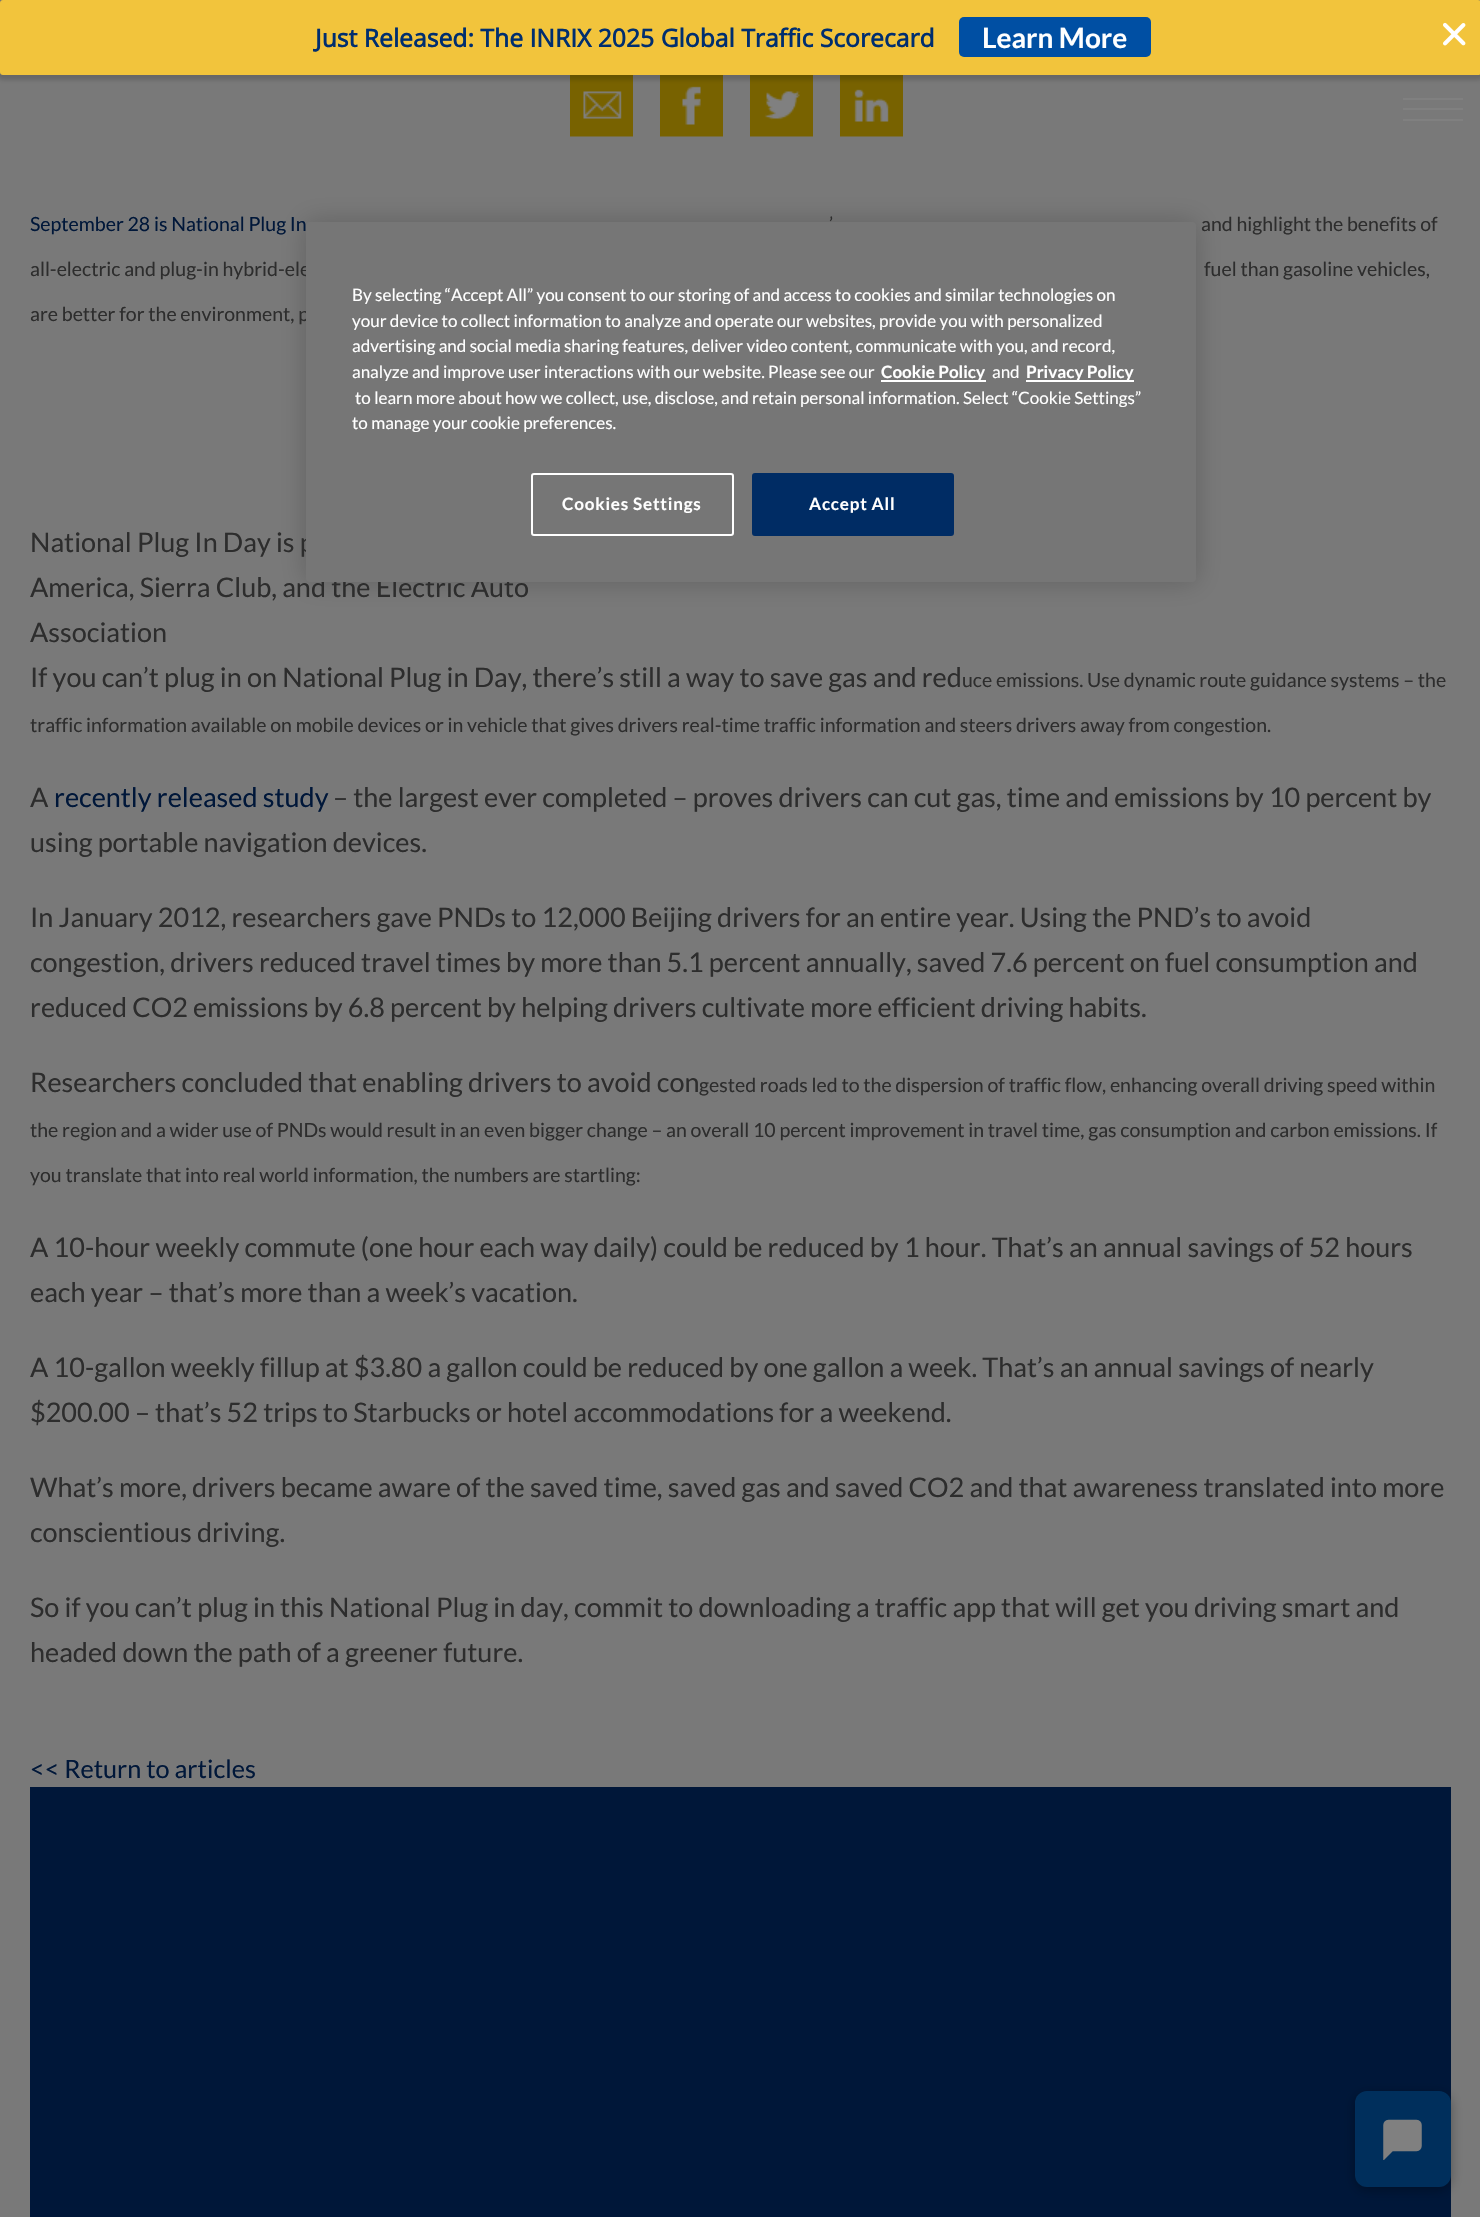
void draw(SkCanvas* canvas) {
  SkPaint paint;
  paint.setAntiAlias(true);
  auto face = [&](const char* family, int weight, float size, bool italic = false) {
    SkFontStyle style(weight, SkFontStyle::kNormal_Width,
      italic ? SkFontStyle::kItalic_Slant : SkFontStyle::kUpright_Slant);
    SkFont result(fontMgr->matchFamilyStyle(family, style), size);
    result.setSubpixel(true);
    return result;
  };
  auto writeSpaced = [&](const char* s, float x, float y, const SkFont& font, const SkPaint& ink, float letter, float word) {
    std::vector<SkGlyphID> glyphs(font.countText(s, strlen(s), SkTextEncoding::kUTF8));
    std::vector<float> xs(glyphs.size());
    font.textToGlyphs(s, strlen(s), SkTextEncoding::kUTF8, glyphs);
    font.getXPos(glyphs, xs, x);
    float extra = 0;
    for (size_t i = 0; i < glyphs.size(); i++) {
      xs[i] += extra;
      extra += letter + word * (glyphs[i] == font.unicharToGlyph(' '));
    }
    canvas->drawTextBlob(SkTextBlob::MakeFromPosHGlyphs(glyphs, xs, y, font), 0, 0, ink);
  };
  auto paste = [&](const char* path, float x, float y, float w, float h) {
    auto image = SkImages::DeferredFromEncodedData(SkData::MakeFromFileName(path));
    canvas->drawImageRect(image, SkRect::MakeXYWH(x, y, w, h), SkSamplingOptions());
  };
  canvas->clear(0xff797979);
  paste("img/2.png", 570, 75, 63, 62);
  paste("img/3.png", 660, 75, 63, 62);
  paste("img/4.png", 750, 75, 63, 62);
  paste("img/5.png", 840, 75, 63, 62);
  paint.setColor(0x26000000);
  paint.setMaskFilter(SkMaskFilter::MakeBlur(kNormal_SkBlurStyle, 2));
  canvas->drawRoundRect(SkRect::MakeXYWH(-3, -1, 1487, 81), 6, 6, paint);
  paint.setMaskFilter(nullptr);
  paint.setColor(0xfff2c43c);
  canvas->drawRoundRect(SkRect::MakeXYWH(0, 0, 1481, 75), 3, 3, paint);
  paint.setColor(0xff004fa3);
  canvas->drawRoundRect(SkRect::MakeXYWH(959, 17, 192, 40), 5, 5, paint);
  paste("img/1.png", 1443, 22, 23, 24);
  {
    const struct { float x, y, w, h; SkColor color; } items[] = {
      {1403, 108, 60, 2, 0xff808080},
      {1403, 98, 60, 2, 0xff808080},
      {1403, 119, 60, 2, 0xff808080},
      {30, 1787, 1421, 430, 0xff001739},
    };
    for (auto [x, y, w, h, color] : items) {
      paint.setColor(color);
      canvas->drawRect(SkRect::MakeXYWH(x, y, w, h), paint);
    }
  }
  paint.setColor(0x33000000);
  paint.setMaskFilter(SkMaskFilter::MakeBlur(kNormal_SkBlurStyle, 13.5f));
  canvas->drawRoundRect(SkRect::MakeXYWH(306, 222, 890, 360), 4, 4, paint);
  paint.setMaskFilter(nullptr);
  paint.setColor(0x4d000000);
  paint.setMaskFilter(SkMaskFilter::MakeBlur(kNormal_SkBlurStyle, 6));
  canvas->drawRoundRect(SkRect::MakeXYWH(1355, 2094, 96, 96), 12, 12, paint);
  paint.setMaskFilter(nullptr);
  paint.setColor(0xff002f5c);
  canvas->drawRoundRect(SkRect::MakeXYWH(1355, 2091, 96, 96), 12, 12, paint);
  paste("img/6.png", 1383, 2119, 39, 41);
  auto f0 = face("Open Sans", 700, 24.7f);
  paint.setColor(0xff002e6f);
  canvas->drawString("Just Released: The INRIX 2025 Global Traffic Scorecard", 315, 47, f0, paint);
  auto f1 = face("Lato", 700, 28);
  paint.setColor(0xffffffff);
  canvas->drawString("Learn More", 982, 48, f1, paint);
  auto f2 = face("Lato", 400, 19.5f);
  paint.setColor(0xff001739);
  canvas->drawString("September 28 is National Plug In", 30, 231, f2, paint);
  paint.setColor(0xff2d2d2d);
  {
    const struct { const char* s; float x, y; } items[] = {
      {"’", 829, 231},
      {"and highlight the benefits of", 1201, 231},
      {"all-electric and plug-in hybrid-ele", 30, 276},
      {"fuel than gasoline vehicles,", 1204, 276},
      {"are better for the environment, p", 30, 321},
    };
    for (auto [s, x, y] : items) {
      canvas->drawString(s, x, y, f2, paint);
    }
  }
  auto f3 = face("Lato", 400, 27);
  {
    const struct { const char* s; float x, y; } items[] = {
      {"National Plug In Day is p", 30, 552},
      {"America, Sierra Club, and the Electric Auto", 30, 597},
      {"Association", 30, 642},
      {"If you can’t plug in on National Plug in Day, there’s still a way to save gas and red", 30, 687},
    };
    for (auto [s, x, y] : items) {
      canvas->drawString(s, x, y, f3, paint);
    }
  }
  canvas->drawString("uce emissions. Use dynamic route guidance systems – the", 962, 687, f2, paint);
  canvas->drawString("traffic information available on mobile devices or in vehicle that gives drivers real-time traffic information and steers drivers away from congestion.", 30, 732, f2, paint);
  canvas->drawString("A", 30, 807, f3, paint);
  paint.setColor(0xff001739);
  canvas->drawString("recently released study", 54, 807, f3, paint);
  paint.setColor(0xff2d2d2d);
  {
    const struct { const char* s; float x, y; } items[] = {
      {"– the largest ever completed – proves drivers can cut gas, time and emissions by 10 percent by", 333, 807},
      {"using portable navigation devices.", 30, 852},
      {"In January 2012, researchers gave PNDs to 12,000 Beijing drivers for an entire year. Using the PND’s to avoid", 30, 927},
      {"congestion, drivers reduced travel times by more than 5.1 percent annually, saved 7.6 percent on fuel consumption and", 30, 972},
      {"reduced CO2 emissions by 6.8 percent by helping drivers cultivate more efficient driving habits.", 30, 1017},
      {"Researchers concluded that enabling drivers to avoid con", 30, 1092},
    };
    for (auto [s, x, y] : items) {
      canvas->drawString(s, x, y, f3, paint);
    }
  }
  {
    const struct { const char* s; float x, y; } items[] = {
      {"gested roads led to the dispersion of traffic flow, enhancing overall driving speed within", 699, 1092},
      {"the region and a wider use of PNDs would result in an even bigger change – an overall 10 percent improvement in travel time, gas consumption and carbon emissions. If", 30, 1137},
      {"you translate that into real world information, the numbers are startling:", 30, 1182},
    };
    for (auto [s, x, y] : items) {
      canvas->drawString(s, x, y, f2, paint);
    }
  }
  {
    const struct { const char* s; float x, y; } items[] = {
      {"A 10-hour weekly commute (one hour each way daily) could be reduced by 1 hour. That’s an annual savings of 52 hours", 30, 1257},
      {"each year – that’s more than a week’s vacation.", 30, 1302},
      {"A 10-gallon weekly fillup at $3.80 a gallon could be reduced by one gallon a week. That’s an annual savings of nearly", 30, 1377},
      {"$200.00 – that’s 52 trips to Starbucks or hotel accommodations for a weekend.", 30, 1422},
      {"What’s more, drivers became aware of the saved time, saved gas and saved CO2 and that awareness translated into more", 30, 1497},
      {"conscientious driving.", 30, 1542},
      {"So if you can’t plug in this National Plug in day, commit to downloading a traffic app that will get you driving smart and", 30, 1617},
      {"headed down the path of a greener future.", 30, 1662},
    };
    for (auto [s, x, y] : items) {
      canvas->drawString(s, x, y, f3, paint);
    }
  }
  auto f4 = face("Lato", 400, 25.25f);
  paint.setColor(0xff001739);
  canvas->drawString("<< Return to articles", 30, 1778, f4, paint);
  paint.setColor(0xff767676);
  canvas->drawRoundRect(SkRect::MakeXYWH(306, 222, 890, 360), 4, 4, paint);
  auto f5 = face("Lato", 400, 17.05f);
  paint.setColor(0xffffffff);
  {
    const struct { const char* s; float x, y; } items[] = {
      {"By selecting “Accept All” you consent to our storing of and access to cookies and similar technologies on", 352, 301},
      {"your device to collect information to analyze and operate our websites, provide you with personalized", 352, 327},
      {"advertising and social media sharing features, deliver video content, communicate with you, and record,", 352, 352},
      {"analyze and improve user interactions with our website. Please see our", 352, 378},
    };
    for (auto [s, x, y] : items) {
      canvas->drawString(s, x, y, f5, paint);
    }
  }
  canvas->drawRect(SkRect::MakeXYWH(881, 380, 105, 2), paint);
  auto f6 = face("Lato", 700, 17.05f);
  canvas->drawString("Cookie Policy", 881, 378, f6, paint);
  canvas->drawString("and", 992, 378, f5, paint);
  canvas->drawRect(SkRect::MakeXYWH(1026, 380, 108, 2), paint);
  canvas->drawString("Privacy Policy", 1026, 378, f6, paint);
  canvas->drawString("to learn more about how we collect, use, disclose, and retain personal information. Select “Cookie Settings”", 355, 404, f5, paint);
  canvas->drawString("to manage your cookie preferences.", 352, 429, f5, paint);
  paint.setStroke(true);
  paint.setStrokeWidth(2);
  canvas->drawRoundRect(SkRect::MakeXYWH(532, 474, 201, 61), 2, 2, paint);
  paint.setStroke(false);
  writeSpaced("Cookies Settings", 562, 510, f6, paint, 0.8f, 0);
  paint.setColor(0xff002c64);
  canvas->drawRoundRect(SkRect::MakeXYWH(753, 474, 200, 61), 2, 2, paint);
  paint.setStroke(true);
  canvas->drawRoundRect(SkRect::MakeXYWH(753, 474, 200, 61), 2, 2, paint);
  paint.setStroke(false);
  paint.setColor(0xffffffff);
  writeSpaced("Accept All", 809, 510, f6, paint, 0.8f, 0);
}
